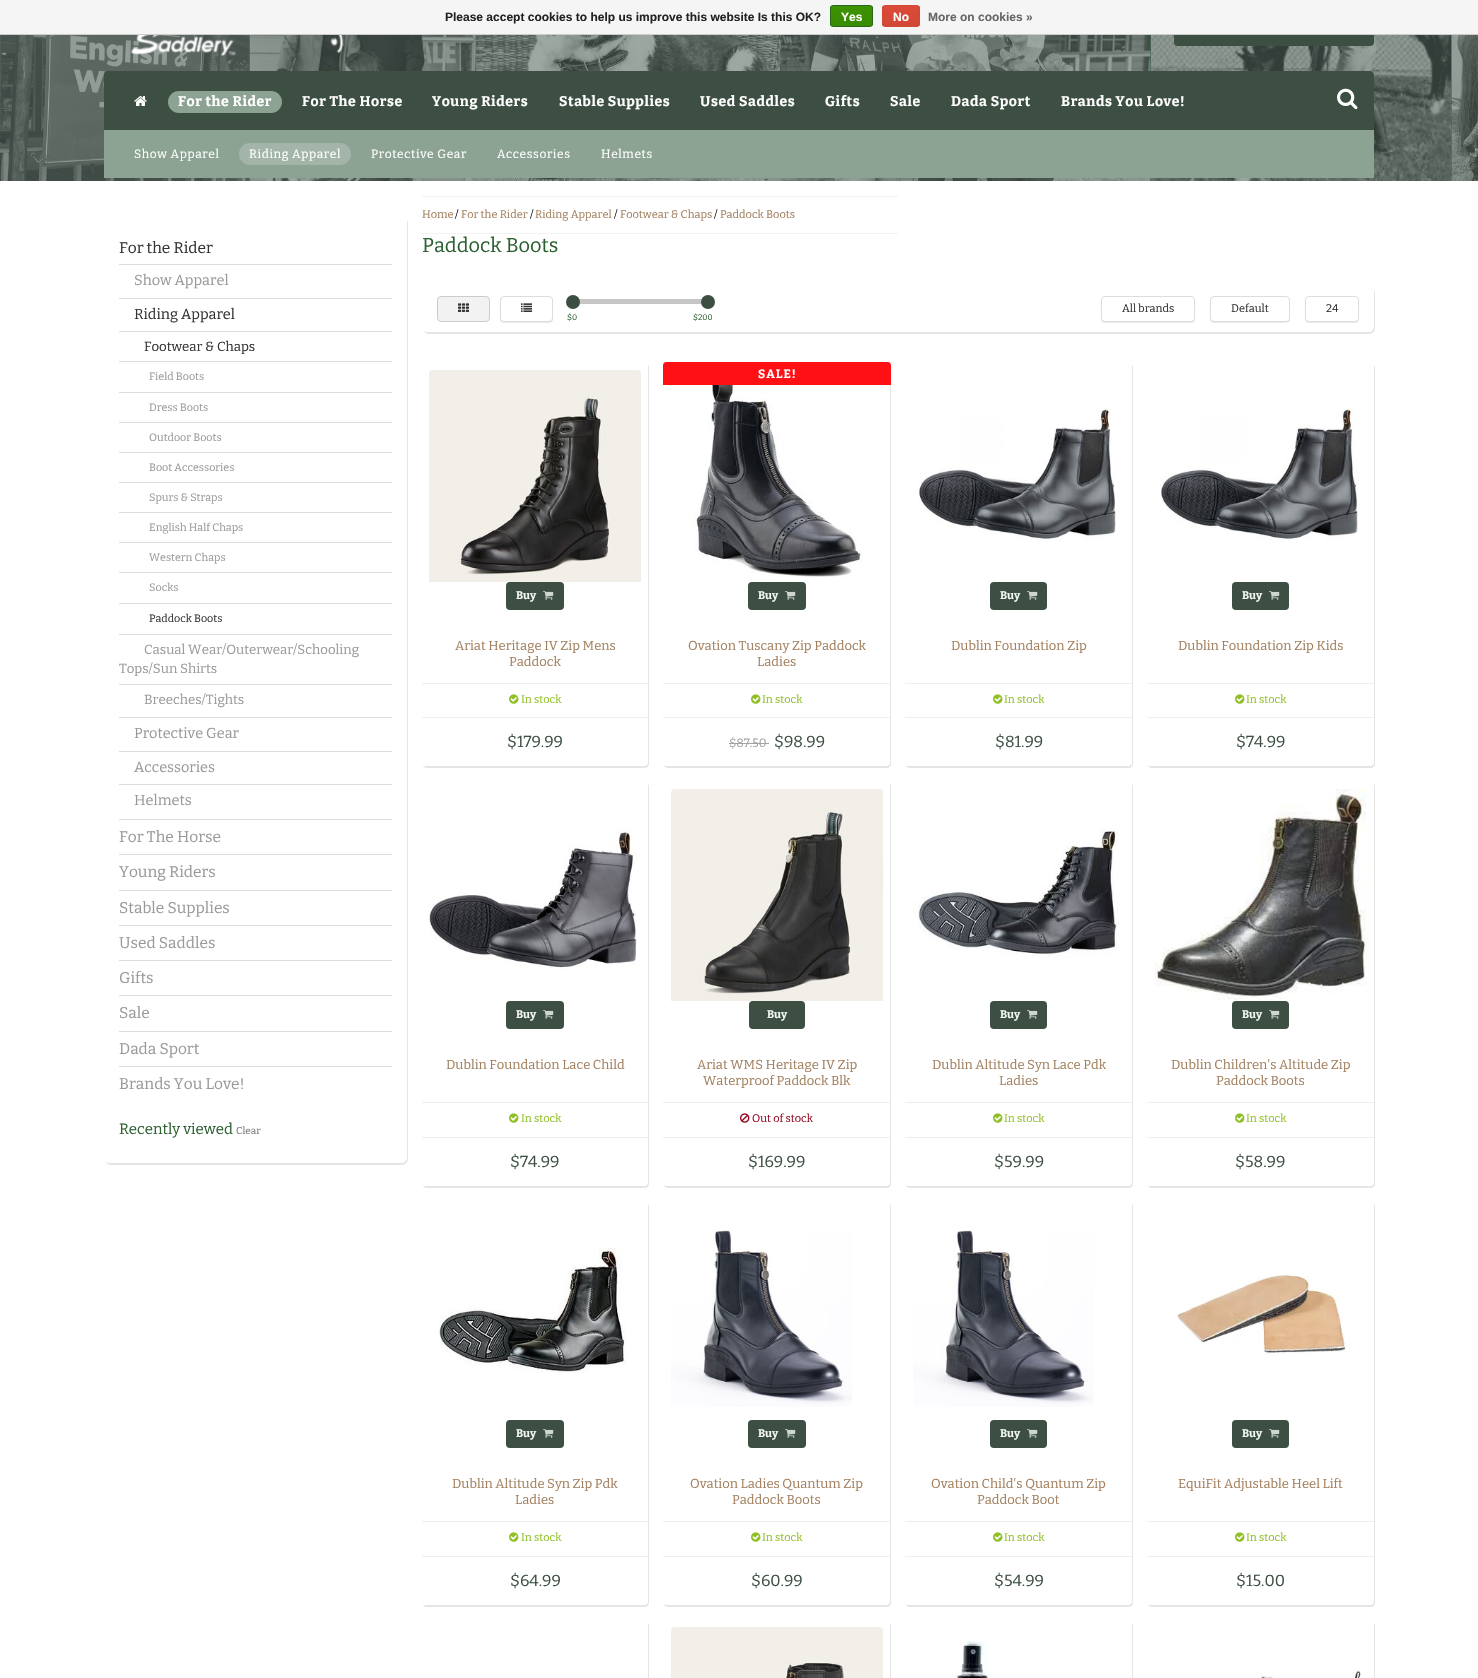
void draw(SkCanvas* canvas) {
  SkPaint paint;
  paint.setAntiAlias(true);
  auto face = [&](const char* family, int weight, float size, bool italic = false) {
    SkFontStyle style(weight, SkFontStyle::kNormal_Width,
      italic ? SkFontStyle::kItalic_Slant : SkFontStyle::kUpright_Slant);
    SkFont result(fontMgr->matchFamilyStyle(family, style), size);
    result.setSubpixel(true);
    return result;
  };
  auto writeSpaced = [&](const char* s, float x, float y, const SkFont& font, const SkPaint& ink, float letter, float word) {
    std::vector<SkGlyphID> glyphs(font.countText(s, strlen(s), SkTextEncoding::kUTF8));
    std::vector<float> xs(glyphs.size());
    font.textToGlyphs(s, strlen(s), SkTextEncoding::kUTF8, glyphs);
    font.getXPos(glyphs, xs, x);
    float extra = 0;
    for (size_t i = 0; i < glyphs.size(); i++) {
      xs[i] += extra;
      extra += letter + word * (glyphs[i] == font.unicharToGlyph(' '));
    }
    canvas->drawTextBlob(SkTextBlob::MakeFromPosHGlyphs(glyphs, xs, y, font), 0, 0, ink);
  };
  auto paste = [&](const char* path, float x, float y, float w, float h) {
    auto image = SkImages::DeferredFromEncodedData(SkData::MakeFromFileName(path));
    canvas->drawImageRect(image, SkRect::MakeXYWH(x, y, w, h), SkSamplingOptions());
  };
  auto shape = [&](const char* data, bool evenOdd = false) {
    SkPath result = *SkParsePath::FromSVGString(data);
    if (evenOdd) result.setFillType(SkPathFillType::kEvenOdd);
    return result;
  };
  canvas->clear(0xffffffff);
  paste("img/1.png", 0, 35, 1478, 146);
  paint.setColor(0xff3c4f42);
  canvas->drawRoundRect(SkRect::MakeXYWH(1174, -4, 200, 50), 4, 4, paint);
  paint.setColor(0xfff5f5f5);
  canvas->drawRect(SkRect::MakeXYWH(0, 0, 1478, 34), paint);
  paint.setColor(0xffcccccc);
  canvas->drawRect(SkRect::MakeXYWH(0, 34, 1478, 1), paint);
  canvas->save();
  canvas->clipPath(shape("M833 5H870C871.5 5 873 6.5 873 8V24C873 25.5 871.5 27 870 27H833C831.5 27 830 25.5 830 24V8C830 6.5 831.5 5 833 5Z"), true);
  {
    const SkColor colors[] = {0xff3c9300, 0xff398a00};
    const float stops[] = {0, 1};
    const SkPoint ends[] = {{852, 6}, {852, 26}};
    paint.setShader(SkGradientShader::MakeLinear(ends, colors, stops, 2, SkTileMode::kClamp));
    paint.setAlpha(255);
  }
  canvas->drawRect(SkRect::MakeXYWH(830, 6, 43, 20), paint);
  canvas->restore();
  paint.setStroke(true);
  paint.setStrokeWidth(1);
  paint.setShader(nullptr);
  paint.setColor(0xff29691d);
  canvas->drawRoundRect(SkRect::MakeXYWH(830.5f, 5.5f, 42, 21), 2.5f, 2.5f, paint);
  canvas->save();
  canvas->clipPath(shape("M885 5H917C918.5 5 920 6.5 920 8V24C920 25.5 918.5 27 917 27H885C883.5 27 882 25.5 882 24V8C882 6.5 883.5 5 885 5Z"), true);
  paint.setStroke(false);
  {
    const SkColor colors[] = {0xffdc4a38, 0xffd14836};
    const float stops[] = {0, 1};
    const SkPoint ends[] = {{901, 6}, {901, 26}};
    paint.setShader(SkGradientShader::MakeLinear(ends, colors, stops, 2, SkTileMode::kClamp));
    paint.setAlpha(255);
  }
  canvas->drawRect(SkRect::MakeXYWH(882, 6, 38, 20), paint);
  canvas->restore();
  paint.setStroke(true);
  paint.setShader(nullptr);
  paint.setColor(0xffd14836);
  canvas->drawRoundRect(SkRect::MakeXYWH(882.5f, 5.5f, 37, 21), 2.5f, 2.5f, paint);
  paste("img/2.png", 130, 35, 214, 21);
  paint.setStroke(false);
  paint.setColor(0xff3c4f42);
  canvas->drawPath(shape("M108 71H1370C1372 71 1374 73 1374 75V133H104V75C104 73 106 71 108 71Z"), paint);
  paint.setColor(0xff8ca393);
  canvas->drawRoundRect(SkRect::MakeXYWH(168, 91, 114, 22), 11, 11, paint);
  canvas->drawRect(SkRect::MakeXYWH(104, 130, 1270, 48), paint);
  paint.setColor(0xffa3b5a8);
  canvas->drawRoundRect(SkRect::MakeXYWH(239, 143, 112, 22), 11, 11, paint);
  paste("img/3.png", 134, 96, 13, 10);
  paste("img/4.png", 1337, 88, 21, 22);
  paint.setColor(0xffe5e5e5);
  canvas->drawPath(shape("M105 1161C106 1163 108 1165 111 1165H402C405 1165 408 1162 408 1159V224C408 223 408 221 407 220V1157C407 1160 404 1163 401 1163H110C108 1163 106 1162 105 1161Z"), paint);
  paint.setColor(0xffffffff);
  canvas->drawRoundRect(SkRect::MakeXYWH(104, 216, 303, 947), 6, 6, paint);
  {
    const struct { float x, y, w, h; SkColor color; } items[] = {
      {119, 264, 273, 1, 0xffdddddd},
      {119, 298, 273, 1, 0xffdddddd},
      {119, 331, 273, 1, 0xffdddddd},
      {119, 361, 273, 1, 0xffdddddd},
      {119, 392, 273, 1, 0xffdddddd},
      {119, 422, 273, 1, 0xffdddddd},
      {119, 452, 273, 1, 0xffdddddd},
      {119, 482, 273, 1, 0xffdddddd},
      {119, 512, 273, 1, 0xffdddddd},
      {119, 542, 273, 1, 0xffdddddd},
      {119, 572, 273, 1, 0xffdddddd},
      {119, 603, 273, 1, 0xffdddddd},
      {119, 634, 273, 1, 0xffdddddd},
      {119, 684, 273, 1, 0xffdddddd},
      {119, 717, 273, 1, 0xffdddddd},
      {119, 751, 273, 1, 0xffdddddd},
      {119, 784, 273, 1, 0xffdddddd},
      {119, 819, 273, 1, 0xffdddddd},
      {119, 854, 273, 1, 0xffdddddd},
      {119, 890, 273, 1, 0xffdddddd},
      {119, 925, 273, 1, 0xffdddddd},
      {119, 960, 273, 1, 0xffdddddd},
      {119, 995, 273, 1, 0xffdddddd},
      {119, 1031, 273, 1, 0xffdddddd},
      {119, 1066, 273, 1, 0xffdddddd},
      {422, 196, 476, 1, 0xfff2f2f2},
      {422, 233, 476, 1, 0xfff2f2f2},
    };
    for (auto [x, y, w, h, color] : items) {
      paint.setColor(color);
      canvas->drawRect(SkRect::MakeXYWH(x, y, w, h), paint);
    }
  }
  paint.setColor(0xffe5e5e5);
  canvas->drawPath(shape("M423 330C424 332 426 334 429 334H1369C1372 334 1375 331 1375 328V294C1375 293 1375 291 1374 290V320C1374 325 1375 332 1368 332H427C426 332 424 331 423 330Z"), paint);
  paint.setColor(0xffffffff);
  canvas->drawRoundRect(SkRect::MakeXYWH(422, 286, 952, 46), 6, 6, paint);
  paint.setColor(0x1a221919);
  paint.setMaskFilter(SkMaskFilter::MakeBlur(kNormal_SkBlurStyle, 0.5f));
  canvas->drawRoundRect(SkRect::MakeXYWH(1101, 297, 94, 26), 4, 4, paint);
  paint.setMaskFilter(nullptr);
  paint.setColor(0xffffffff);
  canvas->drawRoundRect(SkRect::MakeXYWH(1101.5f, 296.5f, 93, 25), 3.5f, 3.5f, paint);
  paint.setStroke(true);
  paint.setColor(0xffdddddd);
  canvas->drawRoundRect(SkRect::MakeXYWH(1101.5f, 296.5f, 93, 25), 3.5f, 3.5f, paint);
  paint.setStroke(false);
  paint.setColor(0x1a221919);
  paint.setMaskFilter(SkMaskFilter::MakeBlur(kNormal_SkBlurStyle, 0.5f));
  canvas->drawRoundRect(SkRect::MakeXYWH(1210, 297, 80, 26), 4, 4, paint);
  paint.setMaskFilter(nullptr);
  paint.setColor(0xffffffff);
  canvas->drawRoundRect(SkRect::MakeXYWH(1210.5f, 296.5f, 79, 25), 3.5f, 3.5f, paint);
  paint.setStroke(true);
  paint.setColor(0xffdddddd);
  canvas->drawRoundRect(SkRect::MakeXYWH(1210.5f, 296.5f, 79, 25), 3.5f, 3.5f, paint);
  paint.setStroke(false);
  paint.setColor(0x1a221919);
  paint.setMaskFilter(SkMaskFilter::MakeBlur(kNormal_SkBlurStyle, 0.5f));
  canvas->drawRoundRect(SkRect::MakeXYWH(1305, 297, 54, 26), 4, 4, paint);
  paint.setMaskFilter(nullptr);
  paint.setColor(0xffffffff);
  canvas->drawRoundRect(SkRect::MakeXYWH(1305.5f, 296.5f, 53, 25), 3.5f, 3.5f, paint);
  paint.setStroke(true);
  paint.setColor(0xffdddddd);
  canvas->drawRoundRect(SkRect::MakeXYWH(1305.5f, 296.5f, 53, 25), 3.5f, 3.5f, paint);
  paint.setStroke(false);
  paint.setColor(0xfff2f2f2);
  canvas->drawRoundRect(SkRect::MakeXYWH(437.5f, 296.5f, 52, 25), 3.5f, 3.5f, paint);
  paint.setStroke(true);
  paint.setColor(0xffcccccc);
  canvas->drawRoundRect(SkRect::MakeXYWH(437.5f, 296.5f, 52, 25), 3.5f, 3.5f, paint);
  paste("img/5.png", 458, 303, 11, 9);
  paint.setStroke(false);
  paint.setColor(0x1a221919);
  paint.setMaskFilter(SkMaskFilter::MakeBlur(kNormal_SkBlurStyle, 0.5f));
  canvas->drawRoundRect(SkRect::MakeXYWH(500, 297, 53, 26), 4, 4, paint);
  paint.setMaskFilter(nullptr);
  paint.setColor(0xffffffff);
  canvas->drawRoundRect(SkRect::MakeXYWH(500.5f, 296.5f, 52, 25), 3.5f, 3.5f, paint);
  paint.setStroke(true);
  paint.setColor(0xffdddddd);
  canvas->drawRoundRect(SkRect::MakeXYWH(500.5f, 296.5f, 52, 25), 3.5f, 3.5f, paint);
  paste("img/6.png", 521, 303, 11, 9);
  paint.setStroke(false);
  paint.setColor(0xffc6c6c6);
  canvas->drawRect(SkRect::MakeXYWH(579, 299, 126, 5), paint);
  paint.setColor(0xff3c4f42);
  canvas->drawCircle(573, 302, 7, paint);
  canvas->drawCircle(708, 302, 7, paint);
  paint.setColor(0xffe5e5e5);
  canvas->drawPath(shape("M423 765C423 767 425 768 427 768H645C647 768 649 766 649 764V368C649 367 649 366 648 365V762C648 764 646 766 644 766H426C425 766 424 766 423 765Z"), paint);
  paint.setColor(0xffffffff);
  canvas->drawRoundRect(SkRect::MakeXYWH(422, 362, 226, 404), 4, 4, paint);
  paste("img/7.png", 429, 370, 212, 212);
  paint.setColor(0xff3c4f42);
  canvas->drawRoundRect(SkRect::MakeXYWH(506, 582, 58, 28), 4, 4, paint);
  paste("img/8.png", 543, 591, 11, 9);
  paint.setColor(0xffeeeeee);
  canvas->drawRect(SkRect::MakeXYWH(422, 683, 226, 1), paint);
  paste("img/9.png", 509, 694, 10, 10);
  canvas->drawRect(SkRect::MakeXYWH(422, 717, 226, 1), paint);
  paint.setColor(0xffe5e5e5);
  canvas->drawPath(shape("M664 765C664 767 666 768 668 768H887C889 768 891 766 891 764V368C891 367 891 366 890 365V762C890 764 888 766 886 766H667C666 766 665 766 664 765Z"), paint);
  paint.setColor(0xffffffff);
  canvas->drawRoundRect(SkRect::MakeXYWH(663, 362, 227, 404), 4, 4, paint);
  paint.setColor(0xffff1014);
  canvas->drawPath(shape("M666 362H888C889.5 362 891 363.5 891 365V385H663V365C663 363.5 664.5 362 666 362Z"), paint);
  paste("img/10.png", 694, 385, 169, 193);
  paint.setColor(0xff3c4f42);
  canvas->drawRoundRect(SkRect::MakeXYWH(748, 582, 58, 28), 4, 4, paint);
  paste("img/8.png", 785, 591, 11, 9);
  paint.setColor(0xffeeeeee);
  canvas->drawRect(SkRect::MakeXYWH(663, 683, 227, 1), paint);
  paste("img/9.png", 751, 694, 10, 10);
  canvas->drawRect(SkRect::MakeXYWH(663, 717, 227, 1), paint);
  paint.setColor(0xffa3a3a3);
  canvas->drawRect(SkRect::MakeXYWH(729, 743, 40, 1), paint);
  paint.setColor(0xffe5e5e5);
  canvas->drawPath(shape("M906 765C906 767 908 768 910 768H1129C1131 768 1133 766 1133 764V368C1133 367 1133 366 1132 365V762C1132 764 1130 766 1128 766H909C908 766 907 766 906 765Z"), paint);
  paint.setColor(0xffffffff);
  canvas->drawRoundRect(SkRect::MakeXYWH(905, 362, 227, 404), 4, 4, paint);
  paste("img/11.png", 919, 407, 197, 133);
  paint.setColor(0xff3c4f42);
  canvas->drawRoundRect(SkRect::MakeXYWH(990, 582, 57, 28), 4, 4, paint);
  paste("img/8.png", 1027, 591, 11, 9);
  paint.setColor(0xffeeeeee);
  canvas->drawRect(SkRect::MakeXYWH(905, 683, 227, 1), paint);
  paste("img/9.png", 993, 694, 10, 10);
  canvas->drawRect(SkRect::MakeXYWH(905, 717, 227, 1), paint);
  paint.setColor(0xffe5e5e5);
  canvas->drawPath(shape("M1148 765C1148 767 1150 768 1152 768H1371C1373 768 1375 766 1375 764V368C1375 367 1375 366 1374 365V762C1374 764 1372 766 1370 766H1151C1150 766 1149 766 1148 765Z"), paint);
  paint.setColor(0xffffffff);
  canvas->drawRoundRect(SkRect::MakeXYWH(1147, 362, 227, 404), 4, 4, paint);
  paste("img/11.png", 1161, 407, 197, 133);
  paint.setColor(0xff3c4f42);
  canvas->drawRoundRect(SkRect::MakeXYWH(1232, 582, 57, 28), 4, 4, paint);
  paste("img/8.png", 1269, 591, 11, 9);
  paint.setColor(0xffeeeeee);
  canvas->drawRect(SkRect::MakeXYWH(1147, 683, 227, 1), paint);
  paste("img/9.png", 1235, 694, 10, 10);
  canvas->drawRect(SkRect::MakeXYWH(1147, 717, 227, 1), paint);
  paint.setColor(0xffe5e5e5);
  canvas->drawPath(shape("M423 1185C423 1187 425 1188 427 1188H645C647 1188 649 1186 649 1184V787C649 786 649 785 648 784V1182C648 1184 646 1186 644 1186H426C425 1186 424 1186 423 1185Z"), paint);
  paint.setColor(0xffffffff);
  canvas->drawRoundRect(SkRect::MakeXYWH(422, 781, 226, 405), 4, 4, paint);
  paste("img/12.png", 429, 823, 208, 146);
  paint.setColor(0xff3c4f42);
  canvas->drawRoundRect(SkRect::MakeXYWH(506, 1001, 58, 28), 4, 4, paint);
  paste("img/8.png", 543, 1010, 11, 9);
  paint.setColor(0xffeeeeee);
  canvas->drawRect(SkRect::MakeXYWH(422, 1102, 226, 1), paint);
  paste("img/9.png", 509, 1113, 10, 10);
  canvas->drawRect(SkRect::MakeXYWH(422, 1137, 226, 1), paint);
  paint.setColor(0xffe5e5e5);
  canvas->drawPath(shape("M664 1185C664 1187 666 1188 668 1188H887C889 1188 891 1186 891 1184V787C891 786 891 785 890 784V1182C890 1184 888 1186 886 1186H667C666 1186 665 1186 664 1185Z"), paint);
  paint.setColor(0xffffffff);
  canvas->drawRoundRect(SkRect::MakeXYWH(663, 781, 227, 405), 4, 4, paint);
  paste("img/13.png", 671, 789, 212, 212);
  paint.setColor(0xff3c4f42);
  canvas->drawRoundRect(SkRect::MakeXYWH(749, 1001, 56, 28), 4, 4, paint);
  paint.setColor(0xffeeeeee);
  canvas->drawRect(SkRect::MakeXYWH(663, 1102, 227, 1), paint);
  paste("img/14.png", 740, 1113, 10, 10);
  canvas->drawRect(SkRect::MakeXYWH(663, 1137, 227, 1), paint);
  paint.setColor(0xffe5e5e5);
  canvas->drawPath(shape("M906 1185C906 1187 908 1188 910 1188H1129C1131 1188 1133 1186 1133 1184V787C1133 786 1133 785 1132 784V1182C1132 1184 1130 1186 1128 1186H909C908 1186 907 1186 906 1185Z"), paint);
  paint.setColor(0xffffffff);
  canvas->drawRoundRect(SkRect::MakeXYWH(905, 781, 227, 405), 4, 4, paint);
  paste("img/15.png", 914, 829, 205, 129);
  paint.setColor(0xff3c4f42);
  canvas->drawRoundRect(SkRect::MakeXYWH(990, 1001, 57, 28), 4, 4, paint);
  paste("img/8.png", 1027, 1010, 11, 9);
  paint.setColor(0xffeeeeee);
  canvas->drawRect(SkRect::MakeXYWH(905, 1102, 227, 1), paint);
  paste("img/9.png", 993, 1113, 10, 10);
  canvas->drawRect(SkRect::MakeXYWH(905, 1137, 227, 1), paint);
  paint.setColor(0xffe5e5e5);
  canvas->drawPath(shape("M1148 1185C1148 1187 1150 1188 1152 1188H1371C1373 1188 1375 1186 1375 1184V787C1375 786 1375 785 1374 784V1182C1374 1184 1372 1186 1370 1186H1151C1150 1186 1149 1186 1148 1185Z"), paint);
  paint.setColor(0xffffffff);
  canvas->drawRoundRect(SkRect::MakeXYWH(1147, 781, 227, 405), 4, 4, paint);
  paste("img/16.png", 1155, 789, 212, 212);
  paint.setColor(0xff3c4f42);
  canvas->drawRoundRect(SkRect::MakeXYWH(1232, 1001, 57, 28), 4, 4, paint);
  paste("img/8.png", 1269, 1010, 11, 9);
  paint.setColor(0xffeeeeee);
  canvas->drawRect(SkRect::MakeXYWH(1147, 1102, 227, 1), paint);
  paste("img/9.png", 1235, 1113, 10, 10);
  canvas->drawRect(SkRect::MakeXYWH(1147, 1137, 227, 1), paint);
  paint.setColor(0xffe5e5e5);
  canvas->drawPath(shape("M423 1604C423 1606 425 1607 427 1607H645C647 1607 649 1605 649 1603V1207C649 1206 649 1205 648 1204V1601C648 1603 646 1605 644 1605H426C425 1605 424 1605 423 1604Z"), paint);
  paint.setColor(0xffffffff);
  canvas->drawRoundRect(SkRect::MakeXYWH(422, 1201, 226, 404), 4, 4, paint);
  paste("img/17.png", 438, 1247, 189, 126);
  paint.setColor(0xff3c4f42);
  canvas->drawRoundRect(SkRect::MakeXYWH(506, 1420, 58, 28), 4, 4, paint);
  paste("img/8.png", 543, 1429, 11, 9);
  paint.setColor(0xffeeeeee);
  canvas->drawRect(SkRect::MakeXYWH(422, 1521, 226, 1), paint);
  paste("img/9.png", 509, 1532, 10, 10);
  canvas->drawRect(SkRect::MakeXYWH(422, 1556, 226, 1), paint);
  paint.setColor(0xffe5e5e5);
  canvas->drawPath(shape("M664 1604C664 1606 666 1607 668 1607H887C889 1607 891 1605 891 1603V1207C891 1206 891 1205 890 1204V1601C890 1603 888 1605 886 1605H667C666 1605 665 1605 664 1604Z"), paint);
  paint.setColor(0xffffffff);
  canvas->drawRoundRect(SkRect::MakeXYWH(663, 1201, 227, 404), 4, 4, paint);
  paste("img/18.png", 671, 1230, 181, 177);
  paint.setColor(0xff3c4f42);
  canvas->drawRoundRect(SkRect::MakeXYWH(748, 1420, 58, 28), 4, 4, paint);
  paste("img/8.png", 785, 1429, 11, 9);
  paint.setColor(0xffeeeeee);
  canvas->drawRect(SkRect::MakeXYWH(663, 1521, 227, 1), paint);
  paste("img/9.png", 751, 1532, 10, 10);
  canvas->drawRect(SkRect::MakeXYWH(663, 1556, 227, 1), paint);
  paint.setColor(0xffe5e5e5);
  canvas->drawPath(shape("M906 1604C906 1606 908 1607 910 1607H1129C1131 1607 1133 1605 1133 1603V1207C1133 1206 1133 1205 1132 1204V1601C1132 1603 1130 1605 1128 1605H909C908 1605 907 1605 906 1604Z"), paint);
  paint.setColor(0xffffffff);
  canvas->drawRoundRect(SkRect::MakeXYWH(905, 1201, 227, 404), 4, 4, paint);
  paste("img/18.png", 913, 1230, 181, 177);
  paint.setColor(0xff3c4f42);
  canvas->drawRoundRect(SkRect::MakeXYWH(990, 1420, 57, 28), 4, 4, paint);
  paste("img/8.png", 1027, 1429, 11, 9);
  paint.setColor(0xffeeeeee);
  canvas->drawRect(SkRect::MakeXYWH(905, 1521, 227, 1), paint);
  paste("img/9.png", 993, 1532, 10, 10);
  canvas->drawRect(SkRect::MakeXYWH(905, 1556, 227, 1), paint);
  paint.setColor(0xffe5e5e5);
  canvas->drawPath(shape("M1148 1604C1148 1606 1150 1607 1152 1607H1371C1373 1607 1375 1605 1375 1603V1207C1375 1206 1375 1205 1374 1204V1601C1374 1603 1372 1605 1370 1605H1151C1150 1605 1149 1605 1148 1604Z"), paint);
  paint.setColor(0xffffffff);
  canvas->drawRoundRect(SkRect::MakeXYWH(1147, 1201, 227, 404), 4, 4, paint);
  paste("img/19.png", 1177, 1272, 170, 83);
  paint.setColor(0xff3c4f42);
  canvas->drawRoundRect(SkRect::MakeXYWH(1232, 1420, 57, 28), 4, 4, paint);
  paste("img/8.png", 1269, 1429, 11, 9);
  paint.setColor(0xffeeeeee);
  canvas->drawRect(SkRect::MakeXYWH(1147, 1521, 227, 1), paint);
  paste("img/9.png", 1235, 1532, 10, 10);
  canvas->drawRect(SkRect::MakeXYWH(1147, 1556, 227, 1), paint);
  paint.setColor(0xffe5e5e5);
  canvas->drawPath(shape("M423 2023C423 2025 425 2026 427 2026H645C647 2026 649 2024 649 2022V1626C649 1625 649 1624 648 1623V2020C648 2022 646 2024 644 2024H426C425 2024 424 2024 423 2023Z"), paint);
  canvas->drawPath(shape("M664 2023C664 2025 666 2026 668 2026H887C889 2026 891 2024 891 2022V1626C891 1625 891 1624 890 1623V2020C890 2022 888 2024 886 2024H667C666 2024 665 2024 664 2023Z"), paint);
  paste("img/20.png", 671, 1627, 212, 51);
  canvas->drawPath(shape("M906 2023C906 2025 908 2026 910 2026H1129C1131 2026 1133 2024 1133 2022V1626C1133 1625 1133 1624 1132 1623V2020C1132 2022 1130 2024 1128 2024H909C908 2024 907 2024 906 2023Z"), paint);
  paste("img/21.png", 955, 1641, 34, 37);
  canvas->drawPath(shape("M1148 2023C1148 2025 1150 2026 1152 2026H1371C1373 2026 1375 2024 1375 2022V1626C1375 1625 1375 1624 1374 1623V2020C1374 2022 1372 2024 1370 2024H1151C1150 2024 1149 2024 1148 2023Z"), paint);
  paste("img/22.png", 1261, 1670, 100, 8);
  auto f0 = face("Liberation Sans", 700, 12);
  paint.setColor(0xff222222);
  canvas->drawString("Please accept cookies to help us improve this website Is this OK?", 445, 21, f0, paint);
  paint.setColor(0xffffffff);
  canvas->drawString("Yes", 841, 21, f0, paint);
  canvas->drawString("No", 893, 21, f0, paint);
  paint.setColor(0xff666666);
  canvas->drawString("More on cookies »", 928, 21, f0, paint);
  auto f1 = face("Bitter", 700, 14);
  paint.setColor(0xffffffff);
  writeSpaced("For the Rider", 178, 106, f1, paint, 0.6f, 0);
  auto f2 = face("Bitter", 400, 12);
  {
    const struct { const char* s; float x, y; } items[] = {
      {"Show Apparel", 134, 158},
      {"Riding Apparel", 249, 158},
      {"Protective Gear", 371, 158},
      {"Accessories", 497, 158},
      {"Helmets", 601, 158},
    };
    for (auto [s, x, y] : items) {
      writeSpaced(s, x, y, f2, paint, 0.6f, 0);
    }
  }
  {
    const struct { const char* s; float x, y; } items[] = {
      {"For The Horse", 302, 106},
      {"Young Riders", 432, 106},
      {"Stable Supplies", 559, 106},
      {"Used Saddles", 700, 106},
      {"Gifts", 825, 106},
      {"Sale", 890, 106},
      {"Dada Sport", 951, 106},
      {"Brands You Love!", 1061, 106},
    };
    for (auto [s, x, y] : items) {
      writeSpaced(s, x, y, f1, paint, 0.6f, 0);
    }
  }
  auto f3 = face("Bitter", 400, 15.5f);
  paint.setColor(0xff333333);
  canvas->drawString("For the Rider", 119, 253, f3, paint);
  auto f4 = face("Bitter", 400, 14.5f);
  paint.setColor(0xff999999);
  canvas->drawString("Show Apparel", 134, 285, f4, paint);
  paint.setColor(0xff333333);
  canvas->drawString("Riding Apparel", 134, 319, f4, paint);
  auto f5 = face("Bitter", 400, 13.25f);
  canvas->drawString("Footwear & Chaps", 144, 351, f5, paint);
  auto f6 = face("Bitter", 400, 10.75f);
  paint.setColor(0xff999999);
  {
    const struct { const char* s; float x, y; } items[] = {
      {"Field Boots", 149, 380},
      {"Dress Boots", 149, 411},
      {"Outdoor Boots", 149, 441},
      {"Boot Accessories", 149, 471},
      {"Spurs & Straps", 149, 501},
      {"English Half Chaps", 149, 531},
      {"Western Chaps", 149, 561},
      {"Socks", 149, 591},
    };
    for (auto [s, x, y] : items) {
      canvas->drawString(s, x, y, f6, paint);
    }
  }
  paint.setColor(0xff333333);
  canvas->drawString("Paddock Boots", 149, 622, f6, paint);
  paint.setColor(0xff999999);
  {
    const struct { const char* s; float x, y; } items[] = {
      {"Casual Wear/Outerwear/Schooling", 144, 654},
      {"Tops/Sun Shirts", 119, 673},
      {"Breeches/Tights", 144, 704},
    };
    for (auto [s, x, y] : items) {
      canvas->drawString(s, x, y, f5, paint);
    }
  }
  {
    const struct { const char* s; float x, y; } items[] = {
      {"Protective Gear", 134, 738},
      {"Accessories", 134, 772},
      {"Helmets", 134, 805},
    };
    for (auto [s, x, y] : items) {
      canvas->drawString(s, x, y, f4, paint);
    }
  }
  {
    const struct { const char* s; float x, y; } items[] = {
      {"For The Horse", 119, 842},
      {"Young Riders", 119, 877},
      {"Stable Supplies", 119, 913},
      {"Used Saddles", 119, 948},
      {"Gifts", 119, 983},
      {"Sale", 119, 1018},
      {"Dada Sport", 119, 1054},
      {"Brands You Love!", 119, 1089},
    };
    for (auto [s, x, y] : items) {
      canvas->drawString(s, x, y, f3, paint);
    }
  }
  auto f7 = face("Bitter", 400, 15);
  paint.setColor(0xff2c6031);
  canvas->drawString("Recently viewed", 119, 1134, f7, paint);
  auto f8 = face("Bitter", 400, 10);
  paint.setColor(0xff777777);
  canvas->drawString("Clear", 236, 1134, f8, paint);
  auto f9 = face("Bitter", 400, 11);
  paint.setColor(0xffa2805e);
  canvas->drawString("Home", 422, 218, f9, paint);
  paint.setColor(0xff000000);
  canvas->drawString("/", 455, 218, f9, paint);
  paint.setColor(0xffa2805e);
  canvas->drawString("For the Rider", 461, 218, f9, paint);
  paint.setColor(0xff000000);
  canvas->drawString("/", 530, 218, f9, paint);
  paint.setColor(0xffa2805e);
  canvas->drawString("Riding Apparel", 535, 218, f9, paint);
  paint.setColor(0xff000000);
  canvas->drawString("/", 614, 218, f9, paint);
  paint.setColor(0xffa2805e);
  canvas->drawString("Footwear & Chaps", 620, 218, f9, paint);
  paint.setColor(0xff000000);
  canvas->drawString("/", 714, 218, f9, paint);
  paint.setColor(0xffa2805e);
  canvas->drawString("Paddock Boots", 720, 218, f9, paint);
  auto f10 = face("Bitter", 400, 20);
  paint.setColor(0xff2c6031);
  canvas->drawString("Paddock Boots", 422, 252, f10, paint);
  paint.setColor(0xff333333);
  {
    const struct { const char* s; float x, y; } items[] = {
      {"All brands", 1122, 312},
      {"Default", 1231, 312},
      {"24", 1326, 312},
    };
    for (auto [s, x, y] : items) {
      canvas->drawString(s, x, y, f9, paint);
    }
  }
  auto f11 = face("Bitter", 400, 8);
  paint.setColor(0xff2c6031);
  canvas->drawString("$0", 567, 320, f11, paint);
  canvas->drawString("$200", 693, 320, f11, paint);
  auto f12 = face("Bitter", 700, 11);
  paint.setColor(0xfff3f8f3);
  canvas->drawString("Buy", 516, 599, f12, paint);
  auto f13 = face("Bitter", 400, 13);
  paint.setColor(0xffa2805e);
  canvas->drawString("Ariat Heritage IV Zip Mens", 455, 650, f13, paint);
  canvas->drawString("Paddock", 509, 666, f13, paint);
  paint.setColor(0xff90bf26);
  canvas->drawString("In stock", 521, 703, f9, paint);
  auto f14 = face("Bitter", 400, 16);
  paint.setColor(0xff3c4f42);
  canvas->drawString("$179.99", 507, 747, f14, paint);
  auto f15 = face("Bitter", 700, 12);
  paint.setColor(0xffffffff);
  writeSpaced("SALE!", 758, 378, f15, paint, 1, 0);
  paint.setColor(0xfff3f8f3);
  canvas->drawString("Buy", 758, 599, f12, paint);
  paint.setColor(0xffa2805e);
  canvas->drawString("Ovation Tuscany Zip Paddock", 688, 650, f13, paint);
  canvas->drawString("Ladies", 757, 666, f13, paint);
  paint.setColor(0xff90bf26);
  canvas->drawString("In stock", 762, 703, f9, paint);
  paint.setColor(0xffa3a3a3);
  canvas->drawString("$87.50", 729, 747, f2, paint);
  paint.setColor(0xff3c4f42);
  canvas->drawString("$98.99", 774, 747, f14, paint);
  paint.setColor(0xfff3f8f3);
  canvas->drawString("Buy", 1000, 599, f12, paint);
  paint.setColor(0xffa2805e);
  canvas->drawString("Dublin Foundation Zip", 951, 650, f13, paint);
  paint.setColor(0xff90bf26);
  canvas->drawString("In stock", 1004, 703, f9, paint);
  paint.setColor(0xff3c4f42);
  canvas->drawString("$81.99", 995, 747, f14, paint);
  paint.setColor(0xfff3f8f3);
  canvas->drawString("Buy", 1242, 599, f12, paint);
  paint.setColor(0xffa2805e);
  canvas->drawString("Dublin Foundation Zip Kids", 1178, 650, f13, paint);
  paint.setColor(0xff90bf26);
  canvas->drawString("In stock", 1246, 703, f9, paint);
  paint.setColor(0xff3c4f42);
  canvas->drawString("$74.99", 1236, 747, f14, paint);
  paint.setColor(0xfff3f8f3);
  canvas->drawString("Buy", 516, 1018, f12, paint);
  paint.setColor(0xffa2805e);
  canvas->drawString("Dublin Foundation Lace Child", 446, 1069, f13, paint);
  paint.setColor(0xff90bf26);
  canvas->drawString("In stock", 521, 1122, f9, paint);
  paint.setColor(0xff3c4f42);
  canvas->drawString("$74.99", 510, 1167, f14, paint);
  paint.setColor(0xfff3f8f3);
  canvas->drawString("Buy", 767, 1018, f12, paint);
  paint.setColor(0xffa2805e);
  canvas->drawString("Ariat WMS Heritage IV Zip", 697, 1069, f13, paint);
  canvas->drawString("Waterproof Paddock Blk", 703, 1085, f13, paint);
  paint.setColor(0xff940a22);
  canvas->drawString("Out of stock", 752, 1122, f9, paint);
  paint.setColor(0xff3c4f42);
  canvas->drawString("$169.99", 748, 1167, f14, paint);
  paint.setColor(0xfff3f8f3);
  canvas->drawString("Buy", 1000, 1018, f12, paint);
  paint.setColor(0xffa2805e);
  canvas->drawString("Dublin Altitude Syn Lace Pdk", 932, 1069, f13, paint);
  canvas->drawString("Ladies", 999, 1085, f13, paint);
  paint.setColor(0xff90bf26);
  canvas->drawString("In stock", 1004, 1122, f9, paint);
  paint.setColor(0xff3c4f42);
  canvas->drawString("$59.99", 994, 1167, f14, paint);
  paint.setColor(0xfff3f8f3);
  canvas->drawString("Buy", 1242, 1018, f12, paint);
  paint.setColor(0xffa2805e);
  canvas->drawString("Dublin Children's Altitude Zip", 1171, 1069, f13, paint);
  canvas->drawString("Paddock Boots", 1216, 1085, f13, paint);
  paint.setColor(0xff90bf26);
  canvas->drawString("In stock", 1246, 1122, f9, paint);
  paint.setColor(0xff3c4f42);
  canvas->drawString("$58.99", 1235, 1167, f14, paint);
  paint.setColor(0xfff3f8f3);
  canvas->drawString("Buy", 516, 1437, f12, paint);
  paint.setColor(0xffa2805e);
  canvas->drawString("Dublin Altitude Syn Zip Pdk", 452, 1488, f13, paint);
  canvas->drawString("Ladies", 515, 1504, f13, paint);
  paint.setColor(0xff90bf26);
  canvas->drawString("In stock", 521, 1541, f9, paint);
  paint.setColor(0xff3c4f42);
  canvas->drawString("$64.99", 510, 1586, f14, paint);
  paint.setColor(0xfff3f8f3);
  canvas->drawString("Buy", 758, 1437, f12, paint);
  paint.setColor(0xffa2805e);
  canvas->drawString("Ovation Ladies Quantum Zip", 690, 1488, f13, paint);
  canvas->drawString("Paddock Boots", 732, 1504, f13, paint);
  paint.setColor(0xff90bf26);
  canvas->drawString("In stock", 762, 1541, f9, paint);
  paint.setColor(0xff3c4f42);
  canvas->drawString("$60.99", 751, 1586, f14, paint);
  paint.setColor(0xfff3f8f3);
  canvas->drawString("Buy", 1000, 1437, f12, paint);
  paint.setColor(0xffa2805e);
  canvas->drawString("Ovation Child's Quantum Zip", 931, 1488, f13, paint);
  canvas->drawString("Paddock Boot", 977, 1504, f13, paint);
  paint.setColor(0xff90bf26);
  canvas->drawString("In stock", 1004, 1541, f9, paint);
  paint.setColor(0xff3c4f42);
  canvas->drawString("$54.99", 994, 1586, f14, paint);
  paint.setColor(0xfff3f8f3);
  canvas->drawString("Buy", 1242, 1437, f12, paint);
  paint.setColor(0xffa2805e);
  canvas->drawString("EquiFit Adjustable Heel Lift", 1178, 1488, f13, paint);
  paint.setColor(0xff90bf26);
  canvas->drawString("In stock", 1246, 1541, f9, paint);
  paint.setColor(0xff3c4f42);
  canvas->drawString("$15.00", 1236, 1586, f14, paint);
}
